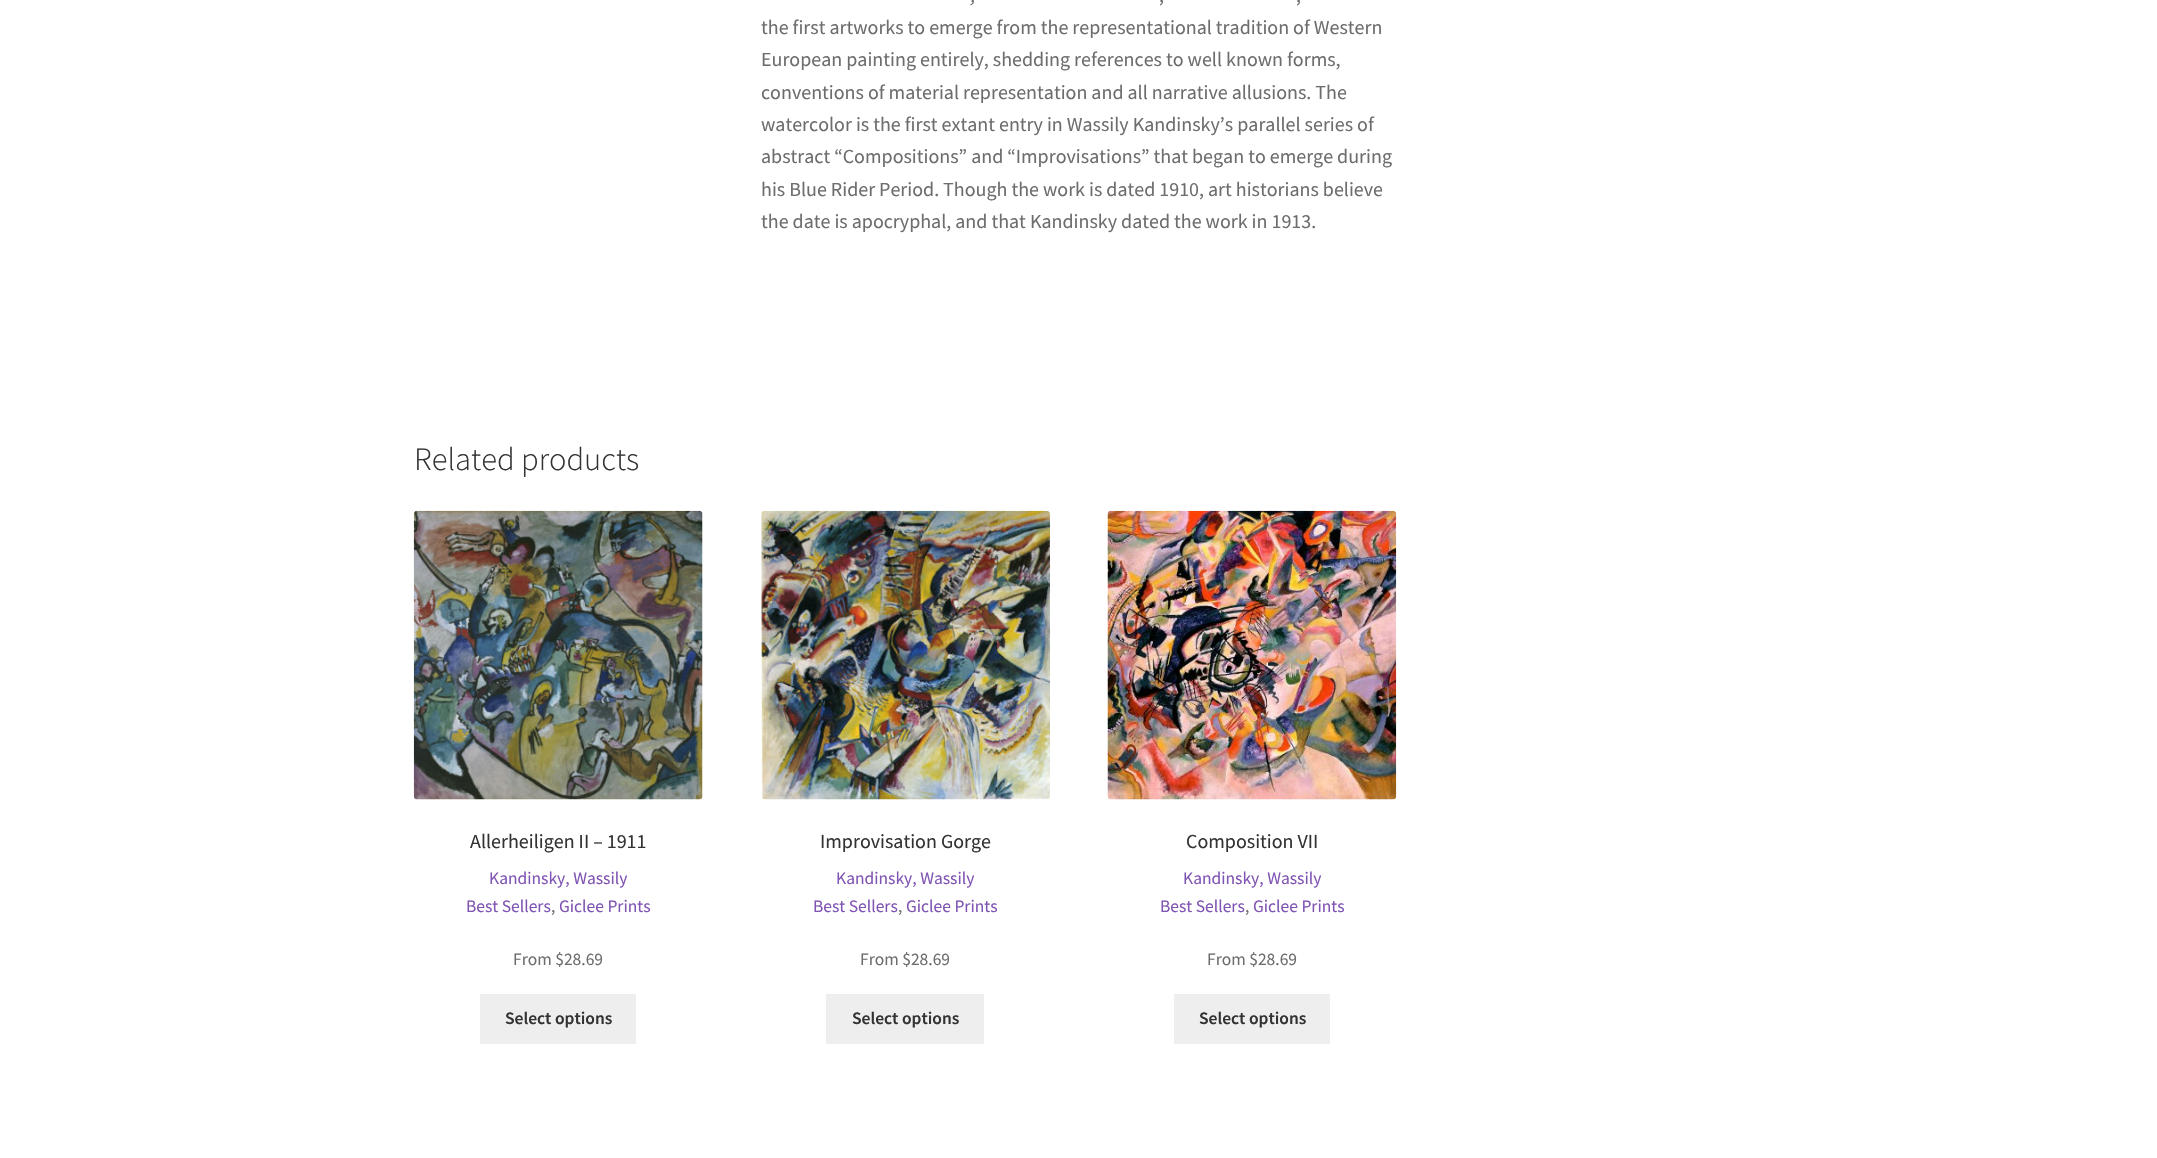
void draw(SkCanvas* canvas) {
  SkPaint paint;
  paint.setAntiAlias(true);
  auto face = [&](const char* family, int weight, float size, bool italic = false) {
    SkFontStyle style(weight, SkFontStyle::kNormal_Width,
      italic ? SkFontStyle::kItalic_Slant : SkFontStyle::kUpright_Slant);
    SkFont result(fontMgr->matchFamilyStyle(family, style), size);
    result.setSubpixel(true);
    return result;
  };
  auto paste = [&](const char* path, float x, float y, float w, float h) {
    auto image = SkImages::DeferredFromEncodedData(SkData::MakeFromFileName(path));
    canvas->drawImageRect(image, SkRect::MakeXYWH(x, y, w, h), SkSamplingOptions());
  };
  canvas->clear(0xffffffff);
  paste("img/1.png", 413, 510, 290, 290);
  paint.setColor(0xffeeeeee);
  canvas->drawRect(SkRect::MakeXYWH(480, 994, 156, 50), paint);
  paste("img/2.png", 761, 510, 289, 290);
  canvas->drawRect(SkRect::MakeXYWH(826, 994, 158, 50), paint);
  paste("img/3.png", 1107, 510, 290, 290);
  canvas->drawRect(SkRect::MakeXYWH(1174, 994, 156, 50), paint);
  auto f0 = face("Source Sans Pro", 400, 20, true);
  paint.setColor(0xff6d6d6d);
  canvas->drawString(",", 971, 2, f0, paint);
  auto f1 = face("Source Sans Pro", 400, 20);
  {
    const struct { const char* s; float x, y; } items[] = {
      {",", 1159, 2},
      {",", 1296, 2},
      {"the first artworks to emerge from the representational tradition of Western", 761, 34},
      {"European painting entirely, shedding references to well known forms,", 761, 66},
      {"conventions of material representation and all narrative allusions. The", 761, 99},
      {"watercolor is the first extant entry in Wassily Kandinsky’s parallel series of", 761, 131},
      {"abstract “Compositions” and “Improvisations” that began to emerge during", 761, 163},
      {"his Blue Rider Period. Though the work is dated 1910, art historians believe", 761, 196},
      {"the date is apocryphal, and that Kandinsky dated the work in 1913.", 761, 228},
    };
    for (auto [s, x, y] : items) {
      canvas->drawString(s, x, y, f1, paint);
    }
  }
  auto f2 = face("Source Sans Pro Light", 300, 32.5f);
  paint.setColor(0xff333333);
  canvas->drawString("Related products", 414, 470, f2, paint);
  canvas->drawString("Allerheiligen II – 1911", 470, 848, f1, paint);
  auto f3 = face("Source Sans Pro", 400, 17.5f);
  paint.setColor(0xff7f54b3);
  canvas->drawString("Kandinsky, Wassily", 489, 884, f3, paint);
  canvas->drawString("Best Sellers", 466, 912, f3, paint);
  paint.setColor(0xff6d6d6d);
  canvas->drawString(",", 551, 912, f3, paint);
  paint.setColor(0xff7f54b3);
  canvas->drawString("Giclee Prints", 559, 912, f3, paint);
  paint.setColor(0xff6d6d6d);
  canvas->drawString("From $28.69", 513, 965, f3, paint);
  auto f4 = face("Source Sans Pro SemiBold", 600, 17.5f);
  paint.setColor(0xff333333);
  canvas->drawString("Select options", 505, 1024, f4, paint);
  canvas->drawString("Improvisation Gorge", 820, 848, f1, paint);
  paint.setColor(0xff7f54b3);
  canvas->drawString("Kandinsky, Wassily", 836, 884, f3, paint);
  canvas->drawString("Best Sellers", 813, 912, f3, paint);
  paint.setColor(0xff6d6d6d);
  canvas->drawString(",", 898, 912, f3, paint);
  paint.setColor(0xff7f54b3);
  canvas->drawString("Giclee Prints", 906, 912, f3, paint);
  paint.setColor(0xff6d6d6d);
  canvas->drawString("From $28.69", 860, 965, f3, paint);
  paint.setColor(0xff333333);
  canvas->drawString("Select options", 852, 1024, f4, paint);
  canvas->drawString("Composition VII", 1186, 848, f1, paint);
  paint.setColor(0xff7f54b3);
  canvas->drawString("Kandinsky, Wassily", 1183, 884, f3, paint);
  canvas->drawString("Best Sellers", 1160, 912, f3, paint);
  paint.setColor(0xff6d6d6d);
  canvas->drawString(",", 1245, 912, f3, paint);
  paint.setColor(0xff7f54b3);
  canvas->drawString("Giclee Prints", 1253, 912, f3, paint);
  paint.setColor(0xff6d6d6d);
  canvas->drawString("From $28.69", 1207, 965, f3, paint);
  paint.setColor(0xff333333);
  canvas->drawString("Select options", 1199, 1024, f4, paint);
}
